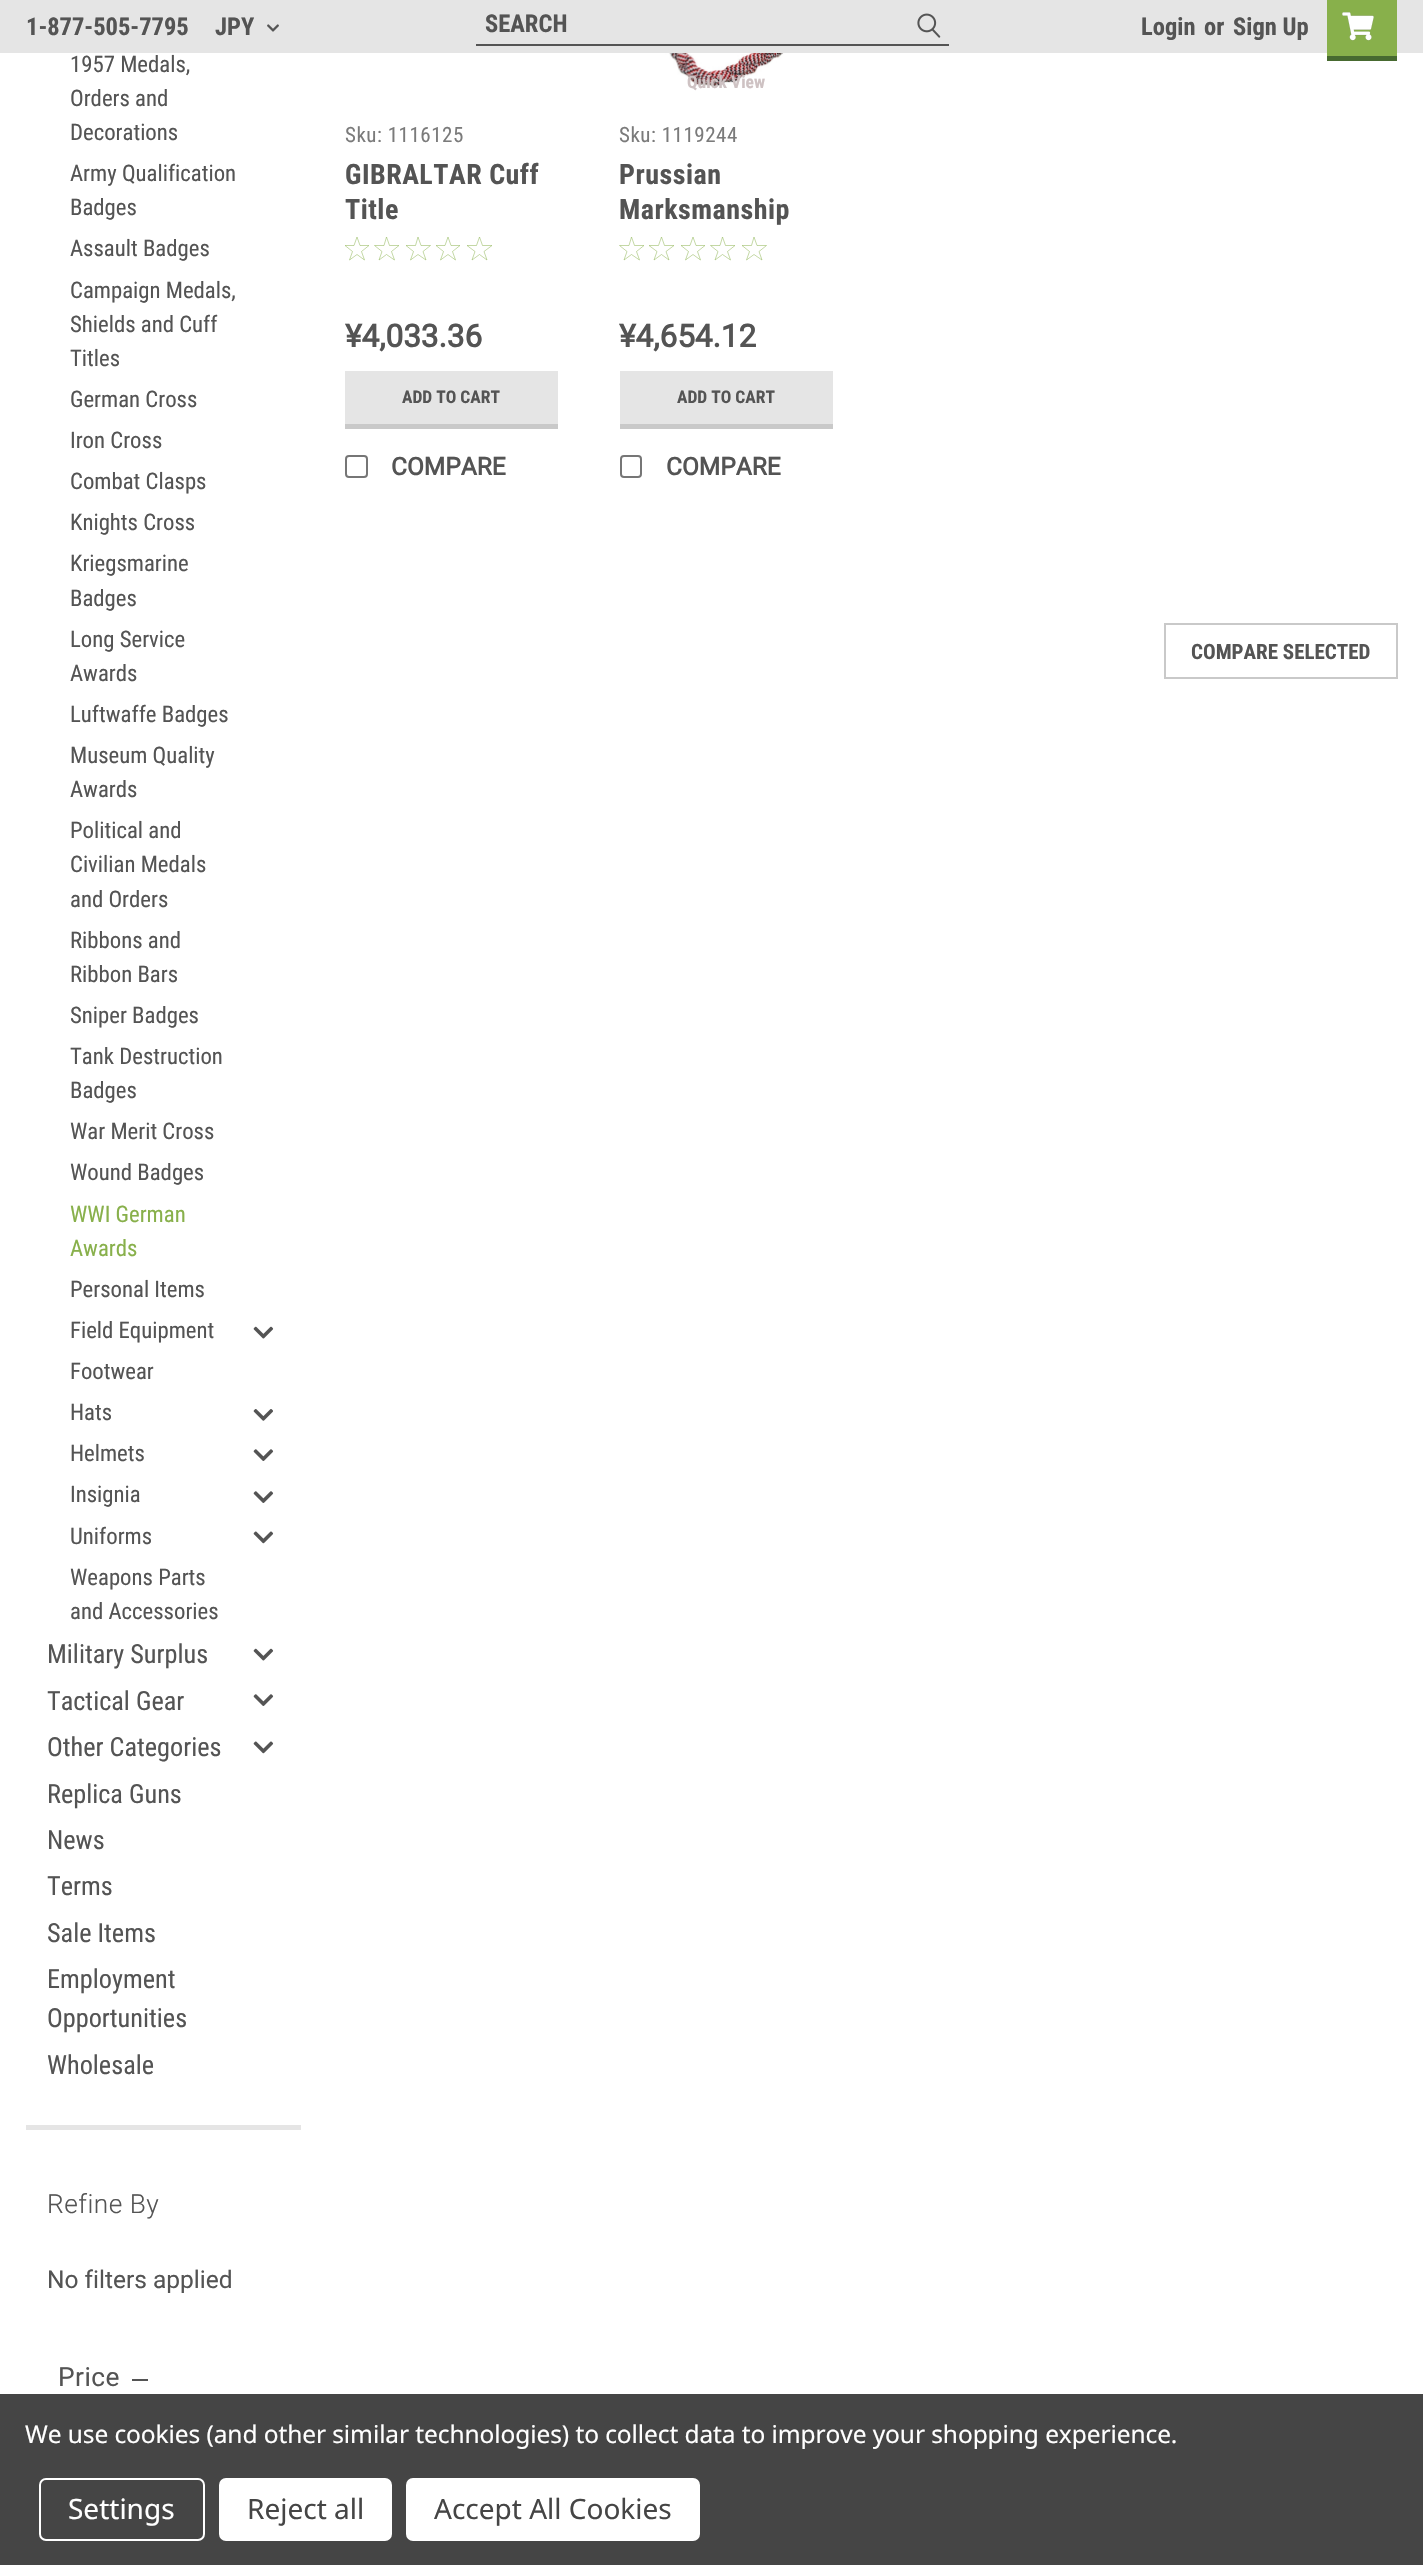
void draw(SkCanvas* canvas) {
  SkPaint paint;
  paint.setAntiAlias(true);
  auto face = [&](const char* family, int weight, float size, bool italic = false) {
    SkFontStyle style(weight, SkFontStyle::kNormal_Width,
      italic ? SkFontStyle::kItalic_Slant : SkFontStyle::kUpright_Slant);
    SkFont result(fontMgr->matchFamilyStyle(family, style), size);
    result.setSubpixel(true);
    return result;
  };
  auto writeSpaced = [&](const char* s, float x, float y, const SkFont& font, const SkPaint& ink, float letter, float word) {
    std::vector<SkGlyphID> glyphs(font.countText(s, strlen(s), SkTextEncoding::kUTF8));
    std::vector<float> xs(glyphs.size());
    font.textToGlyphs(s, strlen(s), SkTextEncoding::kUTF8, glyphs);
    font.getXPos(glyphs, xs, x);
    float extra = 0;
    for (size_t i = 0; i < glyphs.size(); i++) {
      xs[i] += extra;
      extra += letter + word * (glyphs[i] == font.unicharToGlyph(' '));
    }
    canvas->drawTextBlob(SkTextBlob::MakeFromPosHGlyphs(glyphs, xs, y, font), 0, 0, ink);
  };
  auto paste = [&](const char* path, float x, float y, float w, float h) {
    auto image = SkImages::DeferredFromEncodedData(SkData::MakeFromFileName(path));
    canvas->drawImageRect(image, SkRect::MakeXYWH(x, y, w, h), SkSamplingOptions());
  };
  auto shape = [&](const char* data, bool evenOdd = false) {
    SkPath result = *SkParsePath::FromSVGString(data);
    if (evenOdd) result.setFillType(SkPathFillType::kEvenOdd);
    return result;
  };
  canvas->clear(0xffffffff);
  paint.setColor(0xffe5e5e5);
  canvas->drawRect(SkRect::MakeXYWH(0, 0, 1423, 53), paint);
  paint.setColor(0xff545454);
  canvas->drawRect(SkRect::MakeXYWH(476, 44, 473, 2), paint);
  paste("img/1.png", 917, 13, 24, 25);
  paste("img/2.png", 267, 24, 12, 8);
  paint.setColor(0xff88b04b);
  canvas->drawRect(SkRect::MakeXYWH(1327, 0, 70, 56), paint);
  paint.setColor(0xff476a30);
  canvas->drawRect(SkRect::MakeXYWH(1327, 56, 70, 5), paint);
  paste("img/3.png", 1342, 12, 32, 29);
  paint.setColor(0xffe5e5e5);
  canvas->drawRect(SkRect::MakeXYWH(26, 2125, 275, 5), paint);
  paste("img/4.png", 253, 1326, 21, 13);
  paste("img/5.png", 253, 1409, 20, 12);
  paste("img/6.png", 253, 1449, 21, 12);
  paste("img/6.png", 253, 1491, 21, 12);
  paste("img/7.png", 253, 1531, 21, 13);
  paste("img/4.png", 253, 1648, 21, 13);
  paste("img/6.png", 253, 1694, 21, 12);
  paste("img/7.png", 253, 1741, 21, 13);
  paint.setColor(0xff545454);
  canvas->drawRect(SkRect::MakeXYWH(132, 2379, 16, 2), paint);
  paint.setStroke(true);
  paint.setStrokeWidth(0.5f);
  paint.setColor(0xff88b04b);
  canvas->drawPath(shape("M357 237L360 245.5H369L361.5 251.5L364.5 260L357 254.5L349.5 260L352.5 251.5L345 245.5H354ZM386.5 237L389.5 245.5H399L391.5 251.5L394.5 260L386.5 254.5L379 260L382 251.5L374.5 245.5H384Z"), paint);
  canvas->drawPath(shape("M418 237L421 245.5H430.5L423 251.5L426 260L418 254.5L410.5 260L413.5 251.5L406 245.5H415.5ZM448 237L451 245.5H460L452.5 251.5L455.5 260L448 254.5L440.5 260L443.5 251.5L436 245.5H445Z"), paint);
  canvas->drawPath(shape("M479.5 237L482.5 245.5H492L484 251.5L487 260L479.5 254.5L472 260L475 251.5L467 245.5H476.5Z"), paint);
  paint.setStroke(false);
  paint.setColor(0xffe5e5e5);
  canvas->drawRect(SkRect::MakeXYWH(345, 371, 213, 53), paint);
  paint.setColor(0xffc9c9c9);
  canvas->drawRect(SkRect::MakeXYWH(345, 424, 213, 5), paint);
  paint.setStroke(true);
  paint.setStrokeWidth(2);
  paint.setColor(0xff767676);
  canvas->drawRoundRect(SkRect::MakeXYWH(346, 456, 21, 21), 3, 3, paint);
  paste("img/8.png", 648, 53, 194, 34);
  paint.setStrokeWidth(0.5f);
  paint.setColor(0xff88b04b);
  canvas->drawPath(shape("M631.5 237L634.5 245.5H644L636.5 251.5L639.5 260L631.5 254.5L624 260L627 251.5L619.5 245.5H629ZM661.5 237L664.5 245.5H674L666 251.5L669 260L661.5 254.5L654 260L657 251.5L649 245.5H658.5Z"), paint);
  canvas->drawPath(shape("M693 237L696 245.5H705L697.5 251.5L700.5 260L693 254.5L685.5 260L688.5 251.5L681 245.5H690ZM722.5 237L725.5 245.5H735L727.5 251.5L730.5 260L722.5 254.5L715 260L718 251.5L710.5 245.5H720Z"), paint);
  canvas->drawPath(shape("M754 237L757 245.5H766.5L759 251.5L762 260L754 254.5L746.5 260L749.5 251.5L742 245.5H751.5Z"), paint);
  paint.setStroke(false);
  paint.setColor(0xffe5e5e5);
  canvas->drawRect(SkRect::MakeXYWH(620, 371, 213, 53), paint);
  paint.setColor(0xffc9c9c9);
  canvas->drawRect(SkRect::MakeXYWH(620, 424, 213, 5), paint);
  paint.setStroke(true);
  paint.setStrokeWidth(2);
  paint.setColor(0xff767676);
  canvas->drawRoundRect(SkRect::MakeXYWH(621, 456, 20, 21), 3, 3, paint);
  paint.setColor(0xffc9c9c9);
  canvas->drawRect(SkRect::MakeXYWH(1165, 624, 232, 54), paint);
  paint.setStroke(false);
  paint.setColor(0xff454545);
  canvas->drawRect(SkRect::MakeXYWH(0, 2394, 1423, 171), paint);
  paint.setStroke(true);
  paint.setColor(0xffffffff);
  canvas->drawRoundRect(SkRect::MakeXYWH(40, 2479, 164, 61), 6, 6, paint);
  paint.setStroke(false);
  canvas->drawRoundRect(SkRect::MakeXYWH(219, 2478, 173, 63), 7, 7, paint);
  canvas->drawRoundRect(SkRect::MakeXYWH(406, 2478, 294, 63), 7, 7, paint);
  auto f0 = face("Roboto Condensed", 700, 24.5f);
  paint.setColor(0xff545454);
  {
    const struct { const char* s; float x, y; } items[] = {
      {"SEARCH", 485, 32},
      {"1-877-505-7795", 26, 35},
      {"JPY", 215, 35},
      {"Login", 1141, 35},
      {"or", 1204, 35},
      {"Sign Up", 1233, 35},
    };
    for (auto [s, x, y] : items) {
      canvas->drawString(s, x, y, f0, paint);
    }
  }
  auto f1 = face("Roboto Condensed", 400, 22.75f);
  {
    const struct { const char* s; float x, y; } items[] = {
      {"1957 Medals,", 70, 72},
      {"Orders and", 70, 106},
      {"Decorations", 70, 140},
      {"Army Qualification", 70, 181},
      {"Badges", 70, 215},
      {"Assault Badges", 70, 256},
      {"Campaign Medals,", 70, 298},
      {"Shields and Cuff", 70, 332},
      {"Titles", 70, 366},
      {"German Cross", 70, 407},
      {"Iron Cross", 70, 448},
      {"Combat Clasps", 70, 489},
      {"Knights Cross", 70, 530},
      {"Kriegsmarine", 70, 571},
      {"Badges", 70, 606},
      {"Long Service", 70, 647},
      {"Awards", 70, 681},
      {"Luftwaffe Badges", 70, 722},
      {"Museum Quality", 70, 763},
      {"Awards", 70, 797},
      {"Political and", 70, 838},
      {"Civilian Medals", 70, 872},
      {"and Orders", 70, 907},
      {"Ribbons and", 70, 948},
      {"Ribbon Bars", 70, 982},
      {"Sniper Badges", 70, 1023},
      {"Tank Destruction", 70, 1064},
      {"Badges", 70, 1098},
      {"War Merit Cross", 70, 1139},
      {"Wound Badges", 70, 1180},
    };
    for (auto [s, x, y] : items) {
      canvas->drawString(s, x, y, f1, paint);
    }
  }
  paint.setColor(0xff88b04b);
  canvas->drawString("WWI German", 70, 1222, f1, paint);
  canvas->drawString("Awards", 70, 1256, f1, paint);
  paint.setColor(0xff545454);
  {
    const struct { const char* s; float x, y; } items[] = {
      {"Personal Items", 70, 1297},
      {"Field Equipment", 70, 1338},
      {"Footwear", 70, 1379},
      {"Hats", 70, 1420},
      {"Helmets", 70, 1461},
      {"Insignia", 70, 1502},
      {"Uniforms", 70, 1544},
      {"Weapons Parts", 70, 1585},
      {"and Accessories", 70, 1619},
    };
    for (auto [s, x, y] : items) {
      canvas->drawString(s, x, y, f1, paint);
    }
  }
  auto f2 = face("Roboto Condensed", 400, 26.25f);
  {
    const struct { const char* s; float x, y; } items[] = {
      {"Military Surplus", 47, 1663},
      {"Tactical Gear", 47, 1710},
      {"Other Categories", 47, 1756},
      {"Replica Guns", 47, 1803},
      {"News", 47, 1849},
      {"Terms", 47, 1895},
      {"Sale Items", 47, 1942},
      {"Employment", 47, 1988},
      {"Opportunities", 47, 2027},
      {"Wholesale", 47, 2074},
    };
    for (auto [s, x, y] : items) {
      canvas->drawString(s, x, y, f2, paint);
    }
  }
  auto f3 = face("Roboto", 300, 26.25f);
  writeSpaced("Refine By", 47, 2213, f3, paint, 0.5f, 0);
  auto f4 = face("Roboto", 400, 24.5f);
  canvas->drawString("No filters applied", 47, 2288, f4, paint);
  auto f5 = face("Roboto", 400, 26.25f);
  writeSpaced("Price", 58, 2386, f5, paint, 0.5f, 0);
  auto f6 = face("Roboto Condensed", 400, 21);
  paint.setColor(0xff7b7b7b);
  writeSpaced("Sku: 1116125", 345, 142, f6, paint, 0.5f, 0);
  auto f7 = face("Roboto Condensed", 700, 28);
  paint.setColor(0xff545454);
  writeSpaced("GIBRALTAR Cuff", 345, 184, f7, paint, 0.5f, 0);
  writeSpaced("Title", 345, 219, f7, paint, 0.5f, 0);
  auto f8 = face("Roboto", 700, 31.5f);
  canvas->drawString("¥4,033.36", 345, 347, f8, paint);
  auto f9 = face("Roboto Condensed", 700, 17.5f);
  canvas->drawString("ADD TO CART", 402, 403, f9, paint);
  auto f10 = face("Roboto", 700, 24.5f);
  canvas->drawString("COMPARE", 391, 475, f10, paint);
  paint.setColor(0xffcec2c3);
  canvas->drawString("Quick View", 687, 88, f9, paint);
  paint.setColor(0xff7b7b7b);
  writeSpaced("Sku: 1119244", 619, 142, f6, paint, 0.5f, 0);
  paint.setColor(0xff545454);
  writeSpaced("Prussian", 619, 184, f7, paint, 0.5f, 0);
  writeSpaced("Marksmanship", 619, 219, f7, paint, 0.5f, 0);
  canvas->drawString("¥4,654.12", 619, 347, f8, paint);
  canvas->drawString("ADD TO CART", 677, 403, f9, paint);
  canvas->drawString("COMPARE", 666, 475, f10, paint);
  auto f11 = face("Roboto Condensed", 700, 21);
  canvas->drawString("COMPARE SELECTED", 1191, 659, f11, paint);
  auto f12 = face("Noto Sans", 400, 24.5f);
  paint.setColor(0xffffffff);
  writeSpaced("We use cookies (and other similar technologies) to collect data to improve your shopping experience.", 25, 2443, f12, paint, -0.09f, 0);
  auto f13 = face("Noto Sans", 400, 28);
  canvas->drawString("Settings", 68, 2519, f13, paint);
  paint.setColor(0xff454545);
  canvas->drawString("Reject all", 247, 2519, f13, paint);
  canvas->drawString("Accept All Cookies", 434, 2519, f13, paint);
}
